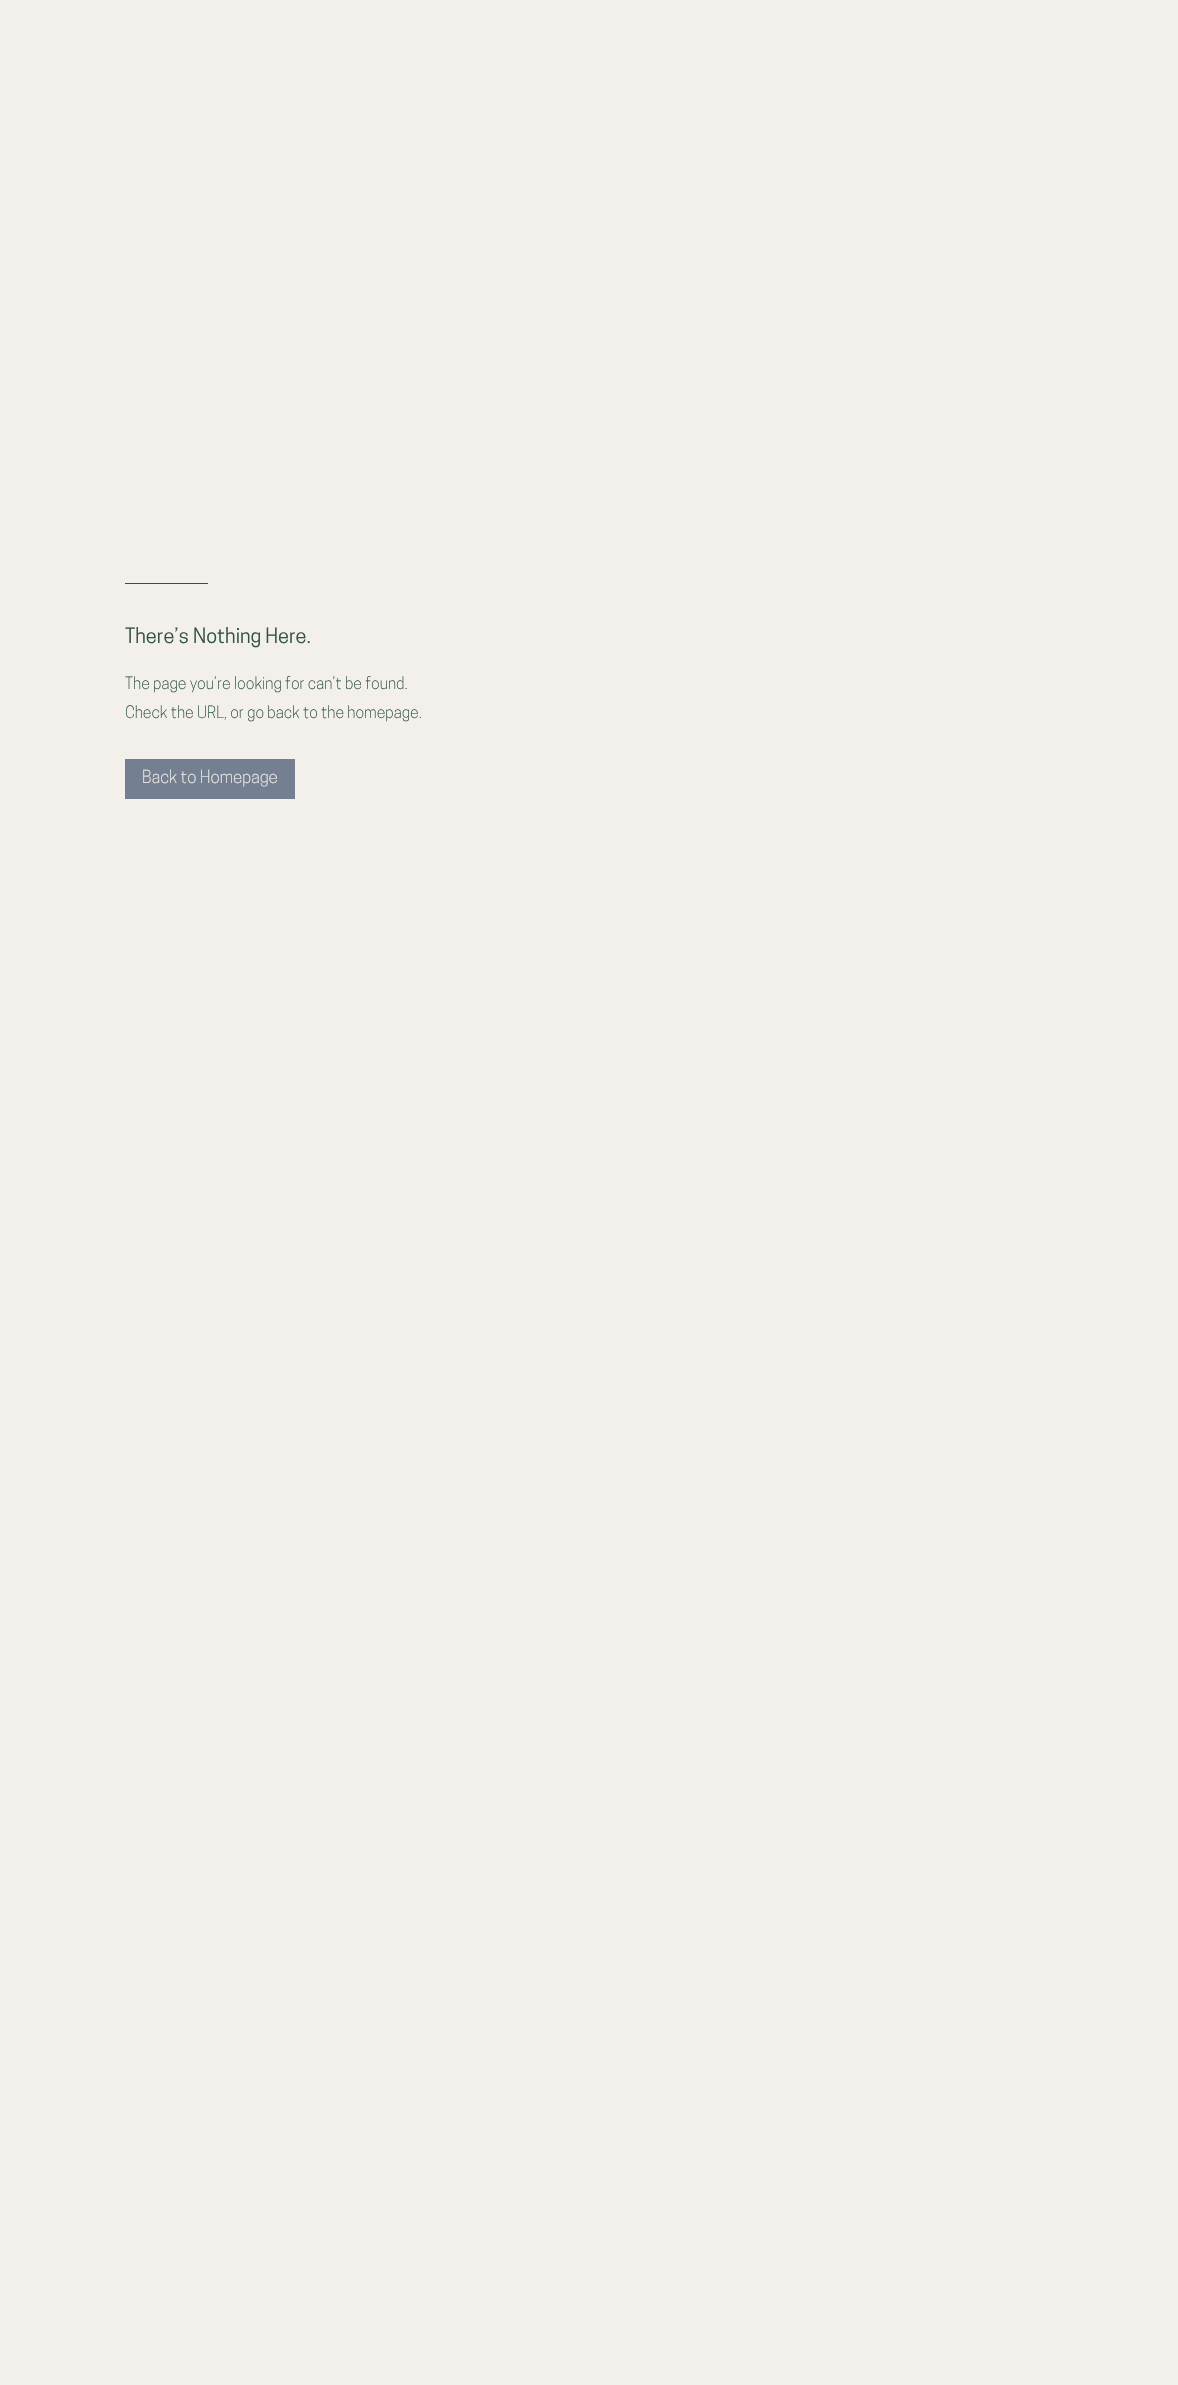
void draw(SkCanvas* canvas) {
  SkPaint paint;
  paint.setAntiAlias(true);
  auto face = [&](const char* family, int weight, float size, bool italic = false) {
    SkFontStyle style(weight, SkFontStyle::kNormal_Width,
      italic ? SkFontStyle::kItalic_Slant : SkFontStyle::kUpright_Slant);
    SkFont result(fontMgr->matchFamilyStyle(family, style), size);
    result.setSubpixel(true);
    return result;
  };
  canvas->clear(0xfff3f0eb);
  paint.setColor(0xff315442);
  canvas->drawRect(SkRect::MakeXYWH(125, 583, 83, 1), paint);
  paint.setColor(0xff748092);
  canvas->drawRect(SkRect::MakeXYWH(125, 759, 170, 40), paint);
  auto f0 = face("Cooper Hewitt", 400, 20);
  paint.setColor(0xff315442);
  canvas->drawString("There’s Nothing Here.", 125, 643, f0, paint);
  auto f1 = face("Cooper Hewitt", 300, 16);
  canvas->drawString("The page you’re looking for can’t be found.", 125, 689, f1, paint);
  canvas->drawString("Check the URL, or go back to the homepage.", 125, 718, f1, paint);
  auto f2 = face("Cooper Hewitt", 300, 17);
  paint.setColor(0xfff3f0eb);
  canvas->drawString("Back to Homepage", 142, 783, f2, paint);
}
